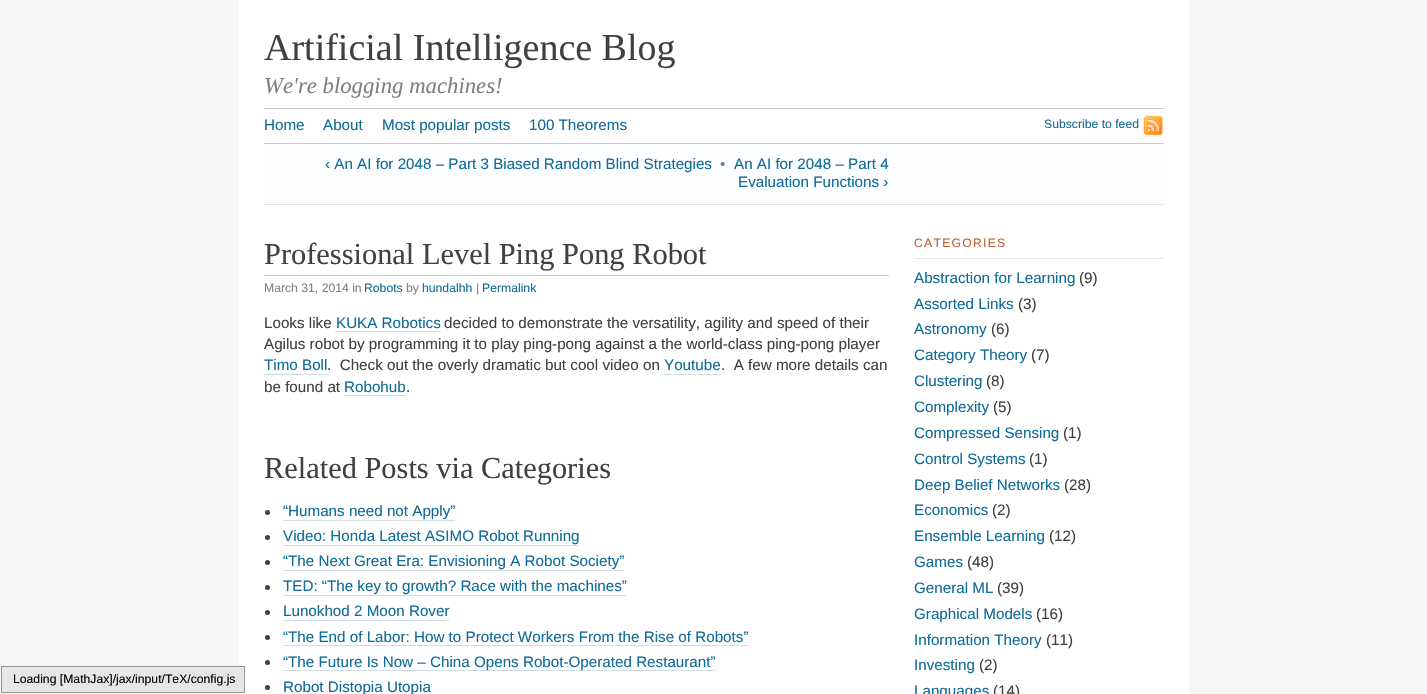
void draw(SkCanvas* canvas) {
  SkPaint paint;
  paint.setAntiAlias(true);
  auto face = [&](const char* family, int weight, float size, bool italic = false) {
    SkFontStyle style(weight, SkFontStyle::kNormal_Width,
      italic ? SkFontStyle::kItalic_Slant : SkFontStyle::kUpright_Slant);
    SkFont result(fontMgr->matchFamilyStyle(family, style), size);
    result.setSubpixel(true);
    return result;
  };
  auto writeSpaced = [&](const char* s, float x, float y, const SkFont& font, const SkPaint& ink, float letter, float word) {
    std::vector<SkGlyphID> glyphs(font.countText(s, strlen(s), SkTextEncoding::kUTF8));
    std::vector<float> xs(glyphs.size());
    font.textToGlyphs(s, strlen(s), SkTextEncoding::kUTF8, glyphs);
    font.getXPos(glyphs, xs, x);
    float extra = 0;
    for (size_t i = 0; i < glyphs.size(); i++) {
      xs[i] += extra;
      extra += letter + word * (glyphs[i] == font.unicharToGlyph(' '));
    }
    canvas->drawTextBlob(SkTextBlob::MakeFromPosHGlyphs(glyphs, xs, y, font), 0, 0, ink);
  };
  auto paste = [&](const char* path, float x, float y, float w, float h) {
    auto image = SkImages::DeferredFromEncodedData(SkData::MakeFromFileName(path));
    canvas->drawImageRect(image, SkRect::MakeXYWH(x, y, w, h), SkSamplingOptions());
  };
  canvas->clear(0xfff6f6f6);
  paint.setColor(0xffffffff);
  canvas->drawRect(SkRect::MakeXYWH(239, 0, 950, 694), paint);
  paint.setColor(0xffe6e6e6);
  canvas->drawRect(SkRect::MakeXYWH(1.5f, 666.5f, 243, 26), paint);
  paint.setStroke(true);
  paint.setStrokeWidth(1);
  paint.setColor(0xff959595);
  canvas->drawRect(SkRect::MakeXYWH(1.5f, 666.5f, 243, 26), paint);
  paint.setStroke(false);
  paint.setColor(0xffcccccc);
  canvas->drawRect(SkRect::MakeXYWH(264, 108, 900, 1), paint);
  canvas->drawRect(SkRect::MakeXYWH(264, 143, 900, 1), paint);
  paste("img/1.png", 1143, 116, 20, 20);
  {
    const struct { float x, y, w, h; SkColor color; } items[] = {
      {264, 144, 900, 60, 0xfffcfeff},
      {264, 204, 900, 1, 0xffe5e5e5},
      {264, 275, 625, 1, 0xffcccccc},
      {335, 331, 105, 1, 0xffcfdde5},
      {264, 374, 64, 1, 0xffcfdde5},
      {664, 374, 57, 1, 0xffcfdde5},
      {344, 395, 62, 1, 0xffcfdde5},
    };
    for (auto [x, y, w, h, color] : items) {
      paint.setColor(color);
      canvas->drawRect(SkRect::MakeXYWH(x, y, w, h), paint);
    }
  }
  paint.setColor(0xff404040);
  canvas->drawCircle(267.5f, 512.5f, 2.5f, paint);
  paint.setColor(0xffcfdde5);
  canvas->drawRect(SkRect::MakeXYWH(283, 520, 172, 1), paint);
  paint.setColor(0xff404040);
  canvas->drawCircle(267.5f, 537.5f, 2.5f, paint);
  paint.setColor(0xffcfdde5);
  canvas->drawRect(SkRect::MakeXYWH(283, 545, 296, 1), paint);
  paint.setColor(0xff404040);
  canvas->drawCircle(267.5f, 562.5f, 2.5f, paint);
  paint.setColor(0xffcfdde5);
  canvas->drawRect(SkRect::MakeXYWH(283, 570, 341, 1), paint);
  paint.setColor(0xff404040);
  canvas->drawCircle(267.5f, 587.5f, 2.5f, paint);
  paint.setColor(0xffcfdde5);
  canvas->drawRect(SkRect::MakeXYWH(283, 595, 343, 1), paint);
  paint.setColor(0xff404040);
  canvas->drawCircle(267.5f, 612.5f, 2.5f, paint);
  paint.setColor(0xffcfdde5);
  canvas->drawRect(SkRect::MakeXYWH(283, 620, 166, 1), paint);
  paint.setColor(0xff404040);
  canvas->drawCircle(267.5f, 637.5f, 2.5f, paint);
  paint.setColor(0xffcfdde5);
  canvas->drawRect(SkRect::MakeXYWH(283, 645, 465, 1), paint);
  paint.setColor(0xff404040);
  canvas->drawCircle(267.5f, 662.5f, 2.5f, paint);
  paint.setColor(0xffcfdde5);
  canvas->drawRect(SkRect::MakeXYWH(283, 670, 432, 1), paint);
  paint.setColor(0xff404040);
  canvas->drawCircle(267.5f, 687.5f, 2.5f, paint);
  paint.setColor(0xffe5e5e5);
  canvas->drawRect(SkRect::MakeXYWH(914, 258, 250, 1), paint);
  auto f0 = face("Liberation Sans", 400, 12.2f);
  paint.setColor(0xff000000);
  canvas->drawString("Loading [MathJax]/jax/input/TeX/config.js", 13, 683, f0, paint);
  auto f1 = face("Liberation Serif", 400, 38);
  paint.setColor(0xff404040);
  canvas->drawString("Artificial Intelligence Blog", 264, 60, f1, paint);
  auto f2 = face("Liberation Serif", 400, 22.75f, true);
  paint.setColor(0xff808080);
  canvas->drawString("We're blogging machines!", 264, 93, f2, paint);
  auto f3 = face("Liberation Sans", 400, 15.2f);
  paint.setColor(0xff0f6b99);
  {
    const struct { const char* s; float x, y; } items[] = {
      {"Home", 264, 130},
      {"About", 323, 130},
      {"Most popular posts", 382, 130},
      {"100 Theorems", 529, 130},
    };
    for (auto [s, x, y] : items) {
      canvas->drawString(s, x, y, f3, paint);
    }
  }
  canvas->drawString("Subscribe to feed", 1044, 128, f0, paint);
  canvas->drawString("‹ An AI for 2048 – Part 3 Biased Random Blind Strategies", 325, 169, f3, paint);
  paint.setColor(0xff808080);
  canvas->drawString("•", 720, 169, f3, paint);
  paint.setColor(0xff0f6b99);
  canvas->drawString("An AI for 2048 – Part 4", 734, 169, f3, paint);
  canvas->drawString("Evaluation Functions ›", 738, 187, f3, paint);
  auto f4 = face("Liberation Serif", 400, 30.4f);
  paint.setColor(0xff404040);
  canvas->drawString("Professional Level Ping Pong Robot", 264, 264, f4, paint);
  paint.setColor(0xff808080);
  canvas->drawString("March 31, 2014 in", 264, 292, f0, paint);
  paint.setColor(0xff0f6b99);
  canvas->drawString("Robots", 364, 292, f0, paint);
  paint.setColor(0xff808080);
  canvas->drawString("by", 406, 292, f0, paint);
  paint.setColor(0xff0f6b99);
  canvas->drawString("hundalhh", 422, 292, f0, paint);
  paint.setColor(0xff808080);
  canvas->drawString("|", 476, 292, f0, paint);
  paint.setColor(0xff0f6b99);
  canvas->drawString("Permalink", 482, 292, f0, paint);
  paint.setColor(0xff404040);
  canvas->drawString("Looks like", 264, 328, f3, paint);
  paint.setColor(0xff0f6b99);
  canvas->drawString("KUKA Robotics", 336, 328, f3, paint);
  paint.setColor(0xff404040);
  canvas->drawString("decided to demonstrate the versatility, agility and speed of their", 444, 328, f3, paint);
  canvas->drawString("Agilus robot by programming it to play ping-pong against a the world-class ping-pong player", 264, 349, f3, paint);
  paint.setColor(0xff0f6b99);
  canvas->drawString("Timo Boll", 264, 370, f3, paint);
  paint.setColor(0xff404040);
  canvas->drawString(".  Check out the overly dramatic but cool video on", 327, 370, f3, paint);
  paint.setColor(0xff0f6b99);
  canvas->drawString("Youtube", 664, 370, f3, paint);
  paint.setColor(0xff404040);
  canvas->drawString(".  A few more details can", 721, 370, f3, paint);
  canvas->drawString("be found at", 264, 392, f3, paint);
  paint.setColor(0xff0f6b99);
  canvas->drawString("Robohub", 344, 392, f3, paint);
  paint.setColor(0xff404040);
  canvas->drawString(".", 406, 392, f3, paint);
  canvas->drawString("Related Posts via Categories", 264, 478, f4, paint);
  paint.setColor(0xff0f6b99);
  {
    const struct { const char* s; float x, y; } items[] = {
      {"“Humans need not Apply”", 283, 516},
      {"Video: Honda Latest ASIMO Robot Running", 283, 541},
      {"“The Next Great Era: Envisioning A Robot Society”", 283, 566},
      {"TED: “The key to growth? Race with the machines”", 283, 591},
      {"Lunokhod 2 Moon Rover", 283, 616},
      {"“The End of Labor: How to Protect Workers From the Rise of Robots”", 283, 642},
      {"“The Future Is Now – China Opens Robot-Operated Restaurant”", 283, 667},
      {"Robot Distopia Utopia", 283, 692},
    };
    for (auto [s, x, y] : items) {
      canvas->drawString(s, x, y, f3, paint);
    }
  }
  paint.setColor(0xffbf6030);
  writeSpaced("CATEGORIES", 914, 247, f0, paint, 1.25f, 0);
  paint.setColor(0xff0f6b99);
  canvas->drawString("Abstraction for Learning", 914, 283, f3, paint);
  paint.setColor(0xff404040);
  canvas->drawString("(9)", 1079, 283, f3, paint);
  paint.setColor(0xff0f6b99);
  canvas->drawString("Assorted Links", 914, 309, f3, paint);
  paint.setColor(0xff404040);
  canvas->drawString("(3)", 1018, 309, f3, paint);
  paint.setColor(0xff0f6b99);
  canvas->drawString("Astronomy", 914, 334, f3, paint);
  paint.setColor(0xff404040);
  canvas->drawString("(6)", 991, 334, f3, paint);
  paint.setColor(0xff0f6b99);
  canvas->drawString("Category Theory", 914, 360, f3, paint);
  paint.setColor(0xff404040);
  canvas->drawString("(7)", 1031, 360, f3, paint);
  paint.setColor(0xff0f6b99);
  canvas->drawString("Clustering", 914, 386, f3, paint);
  paint.setColor(0xff404040);
  canvas->drawString("(8)", 986, 386, f3, paint);
  paint.setColor(0xff0f6b99);
  canvas->drawString("Complexity", 914, 412, f3, paint);
  paint.setColor(0xff404040);
  canvas->drawString("(5)", 993, 412, f3, paint);
  paint.setColor(0xff0f6b99);
  canvas->drawString("Compressed Sensing", 914, 438, f3, paint);
  paint.setColor(0xff404040);
  canvas->drawString("(1)", 1063, 438, f3, paint);
  paint.setColor(0xff0f6b99);
  canvas->drawString("Control Systems", 914, 464, f3, paint);
  paint.setColor(0xff404040);
  canvas->drawString("(1)", 1029, 464, f3, paint);
  paint.setColor(0xff0f6b99);
  canvas->drawString("Deep Belief Networks", 914, 490, f3, paint);
  paint.setColor(0xff404040);
  canvas->drawString("(28)", 1064, 490, f3, paint);
  paint.setColor(0xff0f6b99);
  canvas->drawString("Economics", 914, 515, f3, paint);
  paint.setColor(0xff404040);
  canvas->drawString("(2)", 992, 515, f3, paint);
  paint.setColor(0xff0f6b99);
  canvas->drawString("Ensemble Learning", 914, 541, f3, paint);
  paint.setColor(0xff404040);
  canvas->drawString("(12)", 1049, 541, f3, paint);
  paint.setColor(0xff0f6b99);
  canvas->drawString("Games", 914, 567, f3, paint);
  paint.setColor(0xff404040);
  canvas->drawString("(48)", 967, 567, f3, paint);
  paint.setColor(0xff0f6b99);
  canvas->drawString("General ML", 914, 593, f3, paint);
  paint.setColor(0xff404040);
  canvas->drawString("(39)", 997, 593, f3, paint);
  paint.setColor(0xff0f6b99);
  canvas->drawString("Graphical Models", 914, 619, f3, paint);
  paint.setColor(0xff404040);
  canvas->drawString("(16)", 1036, 619, f3, paint);
  paint.setColor(0xff0f6b99);
  canvas->drawString("Information Theory", 914, 645, f3, paint);
  paint.setColor(0xff404040);
  canvas->drawString("(11)", 1046, 645, f3, paint);
  paint.setColor(0xff0f6b99);
  canvas->drawString("Investing", 914, 670, f3, paint);
  paint.setColor(0xff404040);
  canvas->drawString("(2)", 979, 670, f3, paint);
  paint.setColor(0xff0f6b99);
  canvas->drawString("Languages", 914, 696, f3, paint);
  paint.setColor(0xff404040);
  canvas->drawString("(14)", 993, 696, f3, paint);
}
